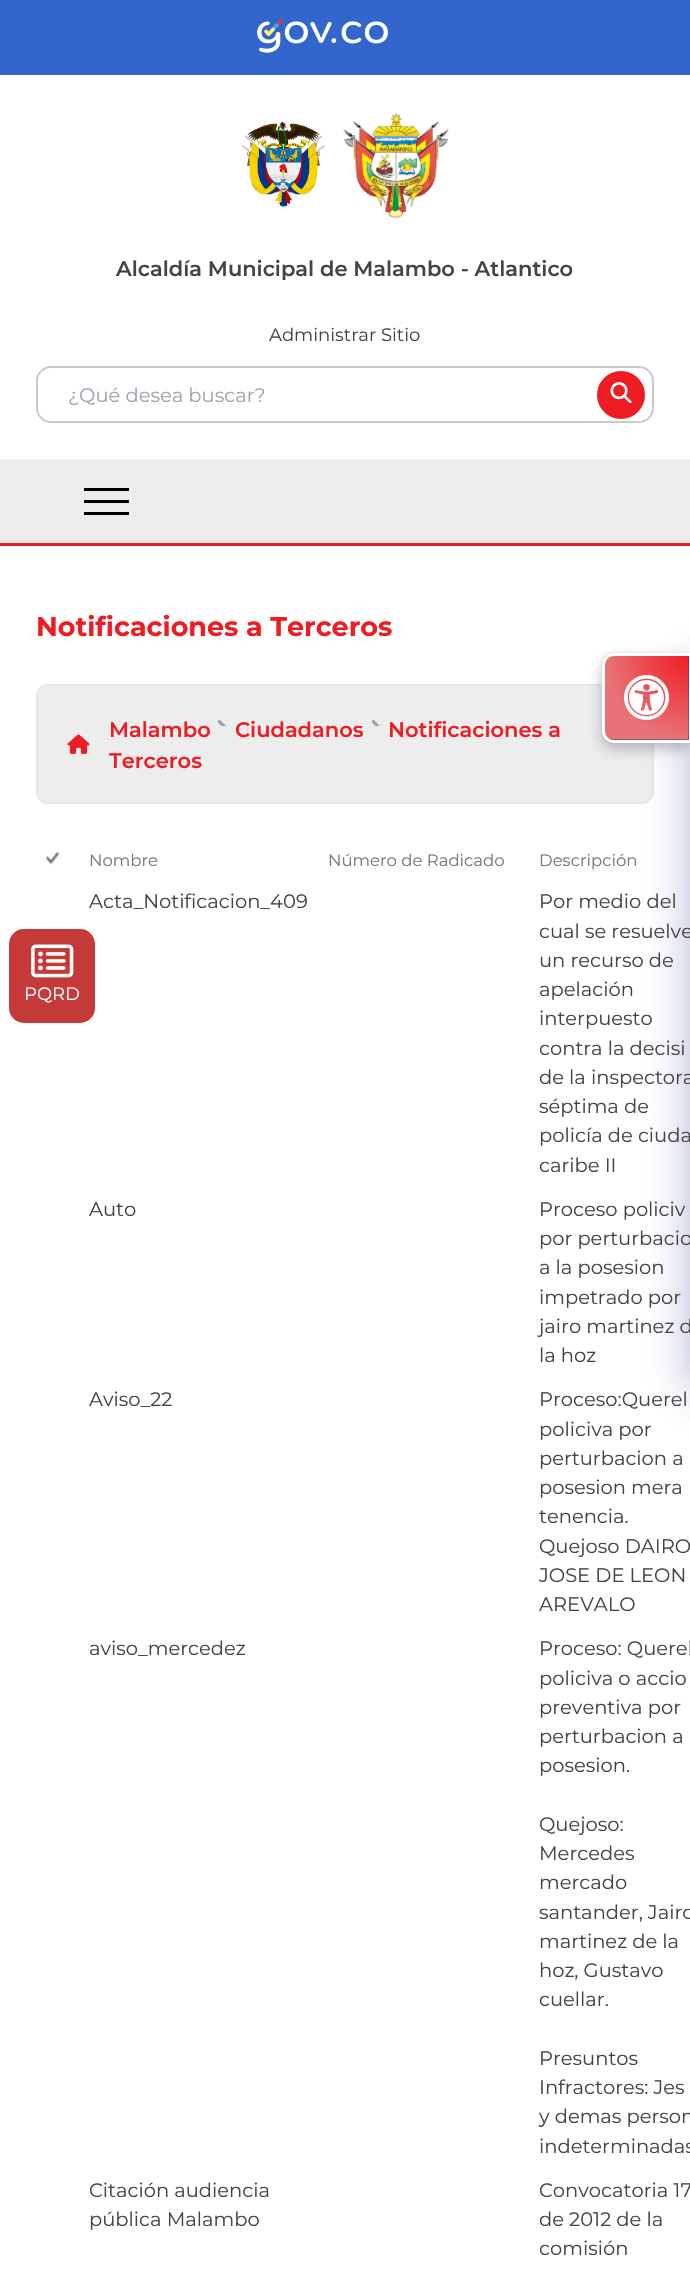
void draw(SkCanvas* canvas) {
  SkPaint paint;
  paint.setAntiAlias(true);
  auto face = [&](const char* family, int weight, float size, bool italic = false) {
    SkFontStyle style(weight, SkFontStyle::kNormal_Width,
      italic ? SkFontStyle::kItalic_Slant : SkFontStyle::kUpright_Slant);
    SkFont result(fontMgr->matchFamilyStyle(family, style), size);
    result.setSubpixel(true);
    return result;
  };
  auto paste = [&](const char* path, float x, float y, float w, float h) {
    auto image = SkImages::DeferredFromEncodedData(SkData::MakeFromFileName(path));
    canvas->drawImageRect(image, SkRect::MakeXYWH(x, y, w, h), SkSamplingOptions());
  };
  auto shape = [&](const char* data, bool evenOdd = false) {
    SkPath result = *SkParsePath::FromSVGString(data);
    if (evenOdd) result.setFillType(SkPathFillType::kEvenOdd);
    return result;
  };
  canvas->clear(0xffffffff);
  paint.setColor(0xff3366cc);
  canvas->drawRect(SkRect::MakeXYWH(0, 0, 690, 75), paint);
  paste("img/1.png", 257, 19, 131, 34);
  paste("img/2.png", 242, 121, 83, 86);
  paste("img/3.png", 343, 113, 106, 105);
  paint.setStroke(true);
  paint.setStrokeWidth(2);
  paint.setColor(0xffc9c9c9);
  canvas->drawRoundRect(SkRect::MakeXYWH(37, 367, 616, 55), 14, 14, paint);
  paint.setStroke(false);
  paint.setColor(0xffed1d23);
  canvas->drawCircle(621, 395, 24, paint);
  paste("img/4.png", 610, 382, 22, 22);
  {
    const struct { float x, y, w, h; SkColor color; } items[] = {
      {0, 459, 690, 84, 0xffededed},
      {0, 543, 690, 3, 0xffed1d23},
      {84, 488, 45, 3, 0xff000000},
      {84, 500, 45, 3, 0xff000000},
      {84, 512, 45, 3, 0xff000000},
    };
    for (auto [x, y, w, h, color] : items) {
      paint.setColor(color);
      canvas->drawRect(SkRect::MakeXYWH(x, y, w, h), paint);
    }
  }
  paint.setColor(0xffededed);
  canvas->drawRoundRect(SkRect::MakeXYWH(37, 685, 616, 118), 11, 11, paint);
  paint.setStroke(true);
  paint.setColor(0xffe5e7eb);
  canvas->drawRoundRect(SkRect::MakeXYWH(37, 685, 616, 118), 11, 11, paint);
  paste("img/5.png", 67, 734, 23, 20);
  paste("img/6.png", 218, 720, 9, 6);
  paste("img/7.png", 372, 720, 8, 6);
  paste("img/8.png", 46, 851, 14, 14);
  paint.setStroke(false);
  paint.setColor(0xffc63939);
  canvas->drawRoundRect(SkRect::MakeXYWH(9, 929, 86, 94), 15, 15, paint);
  paste("img/9.png", 31, 944, 43, 34);
  paint.setColor(0x5e1f2687);
  paint.setMaskFilter(SkMaskFilter::MakeBlur(kNormal_SkBlurStyle, 24));
  canvas->drawRoundRect(SkRect::MakeXYWH(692, 665, 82, 726), 12, 12, paint);
  paint.setMaskFilter(nullptr);
  paint.setColor(0x4d2d2342);
  paint.setMaskFilter(SkMaskFilter::MakeBlur(kNormal_SkBlurStyle, 7));
  canvas->drawRoundRect(SkRect::MakeXYWH(602, 659, 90, 90), 12, 12, paint);
  paint.setMaskFilter(nullptr);
  paint.setColor(0x662d2342);
  paint.setMaskFilter(SkMaskFilter::MakeBlur(kNormal_SkBlurStyle, 0.5f));
  canvas->drawRoundRect(SkRect::MakeXYWH(602, 653, 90, 90), 12, 12, paint);
  paint.setMaskFilter(nullptr);
  {
    const SkColor colors[] = {0xffed1d23, 0xffe97276};
    const float stops[] = {0, 1};
    paint.setShader(SkGradientShader::MakeRadial({689, 656}, 84, colors, stops, 2, SkTileMode::kClamp));
    paint.setAlpha(255);
  }
  canvas->drawRect(SkRect::MakeXYWH(605, 656, 84, 84), paint);
  paint.setShader(nullptr);
  paint.setColor(0x803a416f);
  canvas->drawPath(shape("M606 735C608 738 611 740 614 740H689V656H688V739H614C611 739 608 738 606 735Z"), paint);
  paint.setStroke(true);
  paint.setStrokeWidth(3);
  paint.setColor(0xffffffff);
  canvas->drawPath(shape("M614 654.5H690.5V741.5H614C608 741.5 603.5 737 603.5 731V665C603.5 659 608 654.5 614 654.5Z"), paint);
  paste("img/10.png", 624, 675, 45, 45);
  auto f0 = face("Montserrat", 600, 21);
  paint.setStroke(false);
  paint.setColor(0xff444444);
  canvas->drawString("Alcaldía Municipal de Malambo - Atlantico", 116, 276, f0, paint);
  auto f1 = face("Montserrat", 400, 18);
  canvas->drawString("Administrar Sitio", 269, 341, f1, paint);
  auto f2 = face("Montserrat", 400, 19.5f);
  paint.setColor(0xff9ca3af);
  canvas->drawString("¿Qué desea buscar?", 68, 402, f2, paint);
  auto f3 = face("Montserrat", 700, 27);
  paint.setColor(0xffed1d23);
  canvas->drawString("Notificaciones a Terceros", 36, 636, f3, paint);
  {
    const struct { const char* s; float x, y; } items[] = {
      {"Malambo", 109, 737},
      {"Ciudadanos", 235, 737},
      {"Notificaciones a", 388, 737},
      {"Terceros", 109, 768},
    };
    for (auto [s, x, y] : items) {
      canvas->drawString(s, x, y, f0, paint);
    }
  }
  auto f4 = face("Montserrat", 400, 16.5f);
  paint.setColor(0xff777777);
  {
    const struct { const char* s; float x, y; } items[] = {
      {"Nombre", 89, 866},
      {"Número de Radicado", 328, 866},
      {"Descripción", 539, 866},
    };
    for (auto [s, x, y] : items) {
      canvas->drawString(s, x, y, f4, paint);
    }
  }
  paint.setColor(0xff444444);
  {
    const struct { const char* s; float x, y; } items[] = {
      {"Acta_Notificacion_409", 89, 908},
      {"Por medio del", 539, 908},
      {"cual se resuelve", 539, 938},
      {"un recurso de", 539, 967},
      {"apelación", 539, 996},
      {"interpuesto", 539, 1025},
      {"contra la decisi", 539, 1055},
      {"de la inspectora", 539, 1084},
      {"séptima de", 539, 1113},
      {"policía de ciuda", 539, 1142},
      {"caribe II", 539, 1172},
      {"Auto", 89, 1216},
      {"Proceso policiv", 539, 1216},
      {"por perturbacio", 539, 1245},
      {"a la posesion", 539, 1274},
      {"impetrado por", 539, 1304},
      {"jairo martinez d", 539, 1333},
      {"la hoz", 539, 1362},
      {"Aviso_22", 89, 1406},
      {"Proceso:Querel", 539, 1406},
      {"policiva por", 539, 1436},
      {"perturbacion a", 539, 1465},
      {"posesion mera", 539, 1494},
      {"tenencia.", 539, 1523},
      {"Quejoso DAIRO", 539, 1553},
      {"JOSE DE LEON", 539, 1582},
      {"AREVALO", 539, 1611},
      {"aviso_mercedez", 89, 1655},
      {"Proceso: Querel", 539, 1655},
      {"policiva o accio", 539, 1685},
      {"preventiva por", 539, 1714},
      {"perturbacion a", 539, 1743},
      {"posesion.", 539, 1772},
      {"Quejoso:", 539, 1831},
      {"Mercedes", 539, 1860},
      {"mercado", 539, 1889},
      {"santander, Jairo", 539, 1919},
      {"martinez de la", 539, 1948},
      {"hoz, Gustavo", 539, 1977},
      {"cuellar.", 539, 2006},
      {"Presuntos", 539, 2065},
      {"Infractores: Jes", 539, 2094},
      {"y demas person", 539, 2123},
      {"indeterminadas", 539, 2153},
      {"Citación audiencia", 89, 2197},
      {"pública Malambo", 89, 2226},
      {"Convocatoria 17", 539, 2197},
      {"de 2012 de la", 539, 2226},
      {"comisión", 539, 2255},
    };
    for (auto [s, x, y] : items) {
      canvas->drawString(s, x, y, f2, paint);
    }
  }
  paint.setColor(0xffffffff);
  canvas->drawString("PQRD", 24, 1000, f1, paint);
}
